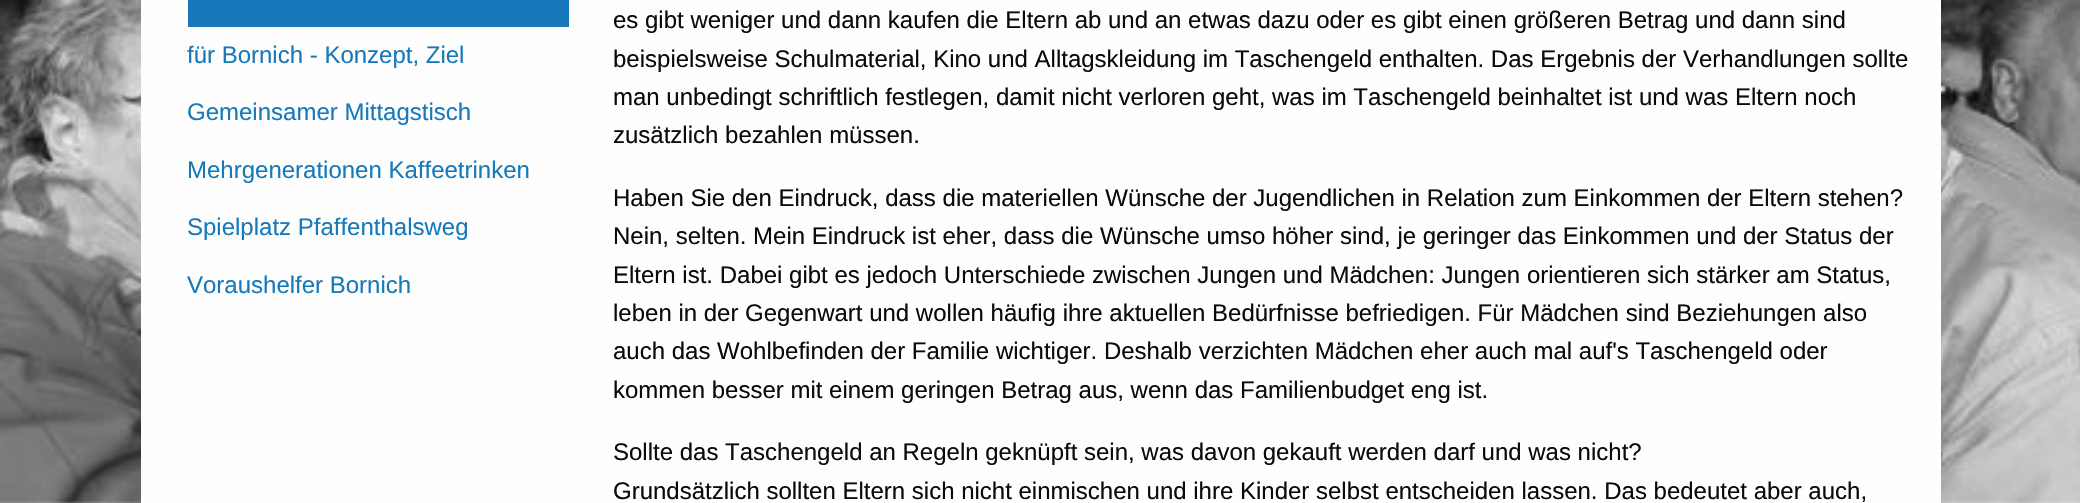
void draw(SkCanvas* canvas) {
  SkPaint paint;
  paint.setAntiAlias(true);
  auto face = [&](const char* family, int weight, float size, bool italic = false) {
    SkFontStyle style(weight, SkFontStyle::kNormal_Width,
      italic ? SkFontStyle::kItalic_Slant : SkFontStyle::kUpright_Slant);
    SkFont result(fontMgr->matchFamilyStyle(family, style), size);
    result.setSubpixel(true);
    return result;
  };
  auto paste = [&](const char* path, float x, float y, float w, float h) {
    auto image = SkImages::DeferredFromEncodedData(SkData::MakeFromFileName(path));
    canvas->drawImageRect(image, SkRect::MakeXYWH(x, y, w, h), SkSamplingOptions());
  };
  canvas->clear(0xffffffff);
  paste("img/1.png", 0, 0, 2080, 503);
  paint.setColor(0xfffefefe);
  canvas->drawRect(SkRect::MakeXYWH(141, 0, 1800, 503), paint);
  paint.setColor(0xff1779ba);
  canvas->drawRect(SkRect::MakeXYWH(188, 0, 381, 27), paint);
  auto f0 = face("Liberation Sans", 400, 24);
  {
    const struct { const char* s; float x, y; } items[] = {
      {"für Bornich - Konzept, Ziel", 187, 63},
      {"Gemeinsamer Mittagstisch", 187, 120},
      {"Mehrgenerationen Kaffeetrinken", 187, 178},
      {"Spielplatz Pfaffenthalsweg", 187, 235},
      {"Voraushelfer Bornich", 187, 293},
    };
    for (auto [s, x, y] : items) {
      canvas->drawString(s, x, y, f0, paint);
    }
  }
  paint.setColor(0xff0a0a0a);
  {
    const struct { const char* s; float x, y; } items[] = {
      {"es gibt weniger und dann kaufen die Eltern ab und an etwas dazu oder es gibt einen größeren Betrag und dann sind", 613, 28},
      {"beispielsweise Schulmaterial, Kino und Alltagskleidung im Taschengeld enthalten. Das Ergebnis der Verhandlungen sollte", 613, 67},
      {"man unbedingt schriftlich festlegen, damit nicht verloren geht, was im Taschengeld beinhaltet ist und was Eltern noch", 613, 105},
      {"zusätzlich bezahlen müssen.", 613, 143},
      {"Haben Sie den Eindruck, dass die materiellen Wünsche der Jugendlichen in Relation zum Einkommen der Eltern stehen?", 613, 206},
      {"Nein, selten. Mein Eindruck ist eher, dass die Wünsche umso höher sind, je geringer das Einkommen und der Status der", 613, 244},
      {"Eltern ist. Dabei gibt es jedoch Unterschiede zwischen Jungen und Mädchen: Jungen orientieren sich stärker am Status,", 613, 283},
      {"leben in der Gegenwart und wollen häufig ihre aktuellen Bedürfnisse befriedigen. Für Mädchen sind Beziehungen also", 613, 321},
      {"auch das Wohlbefinden der Familie wichtiger. Deshalb verzichten Mädchen eher auch mal auf's Taschengeld oder", 613, 359},
      {"kommen besser mit einem geringen Betrag aus, wenn das Familienbudget eng ist.", 613, 398},
      {"Sollte das Taschengeld an Regeln geknüpft sein, was davon gekauft werden darf und was nicht?", 613, 460},
      {"Grundsätzlich sollten Eltern sich nicht einmischen und ihre Kinder selbst entscheiden lassen. Das bedeutet aber auch,", 613, 499},
    };
    for (auto [s, x, y] : items) {
      canvas->drawString(s, x, y, f0, paint);
    }
  }
}
